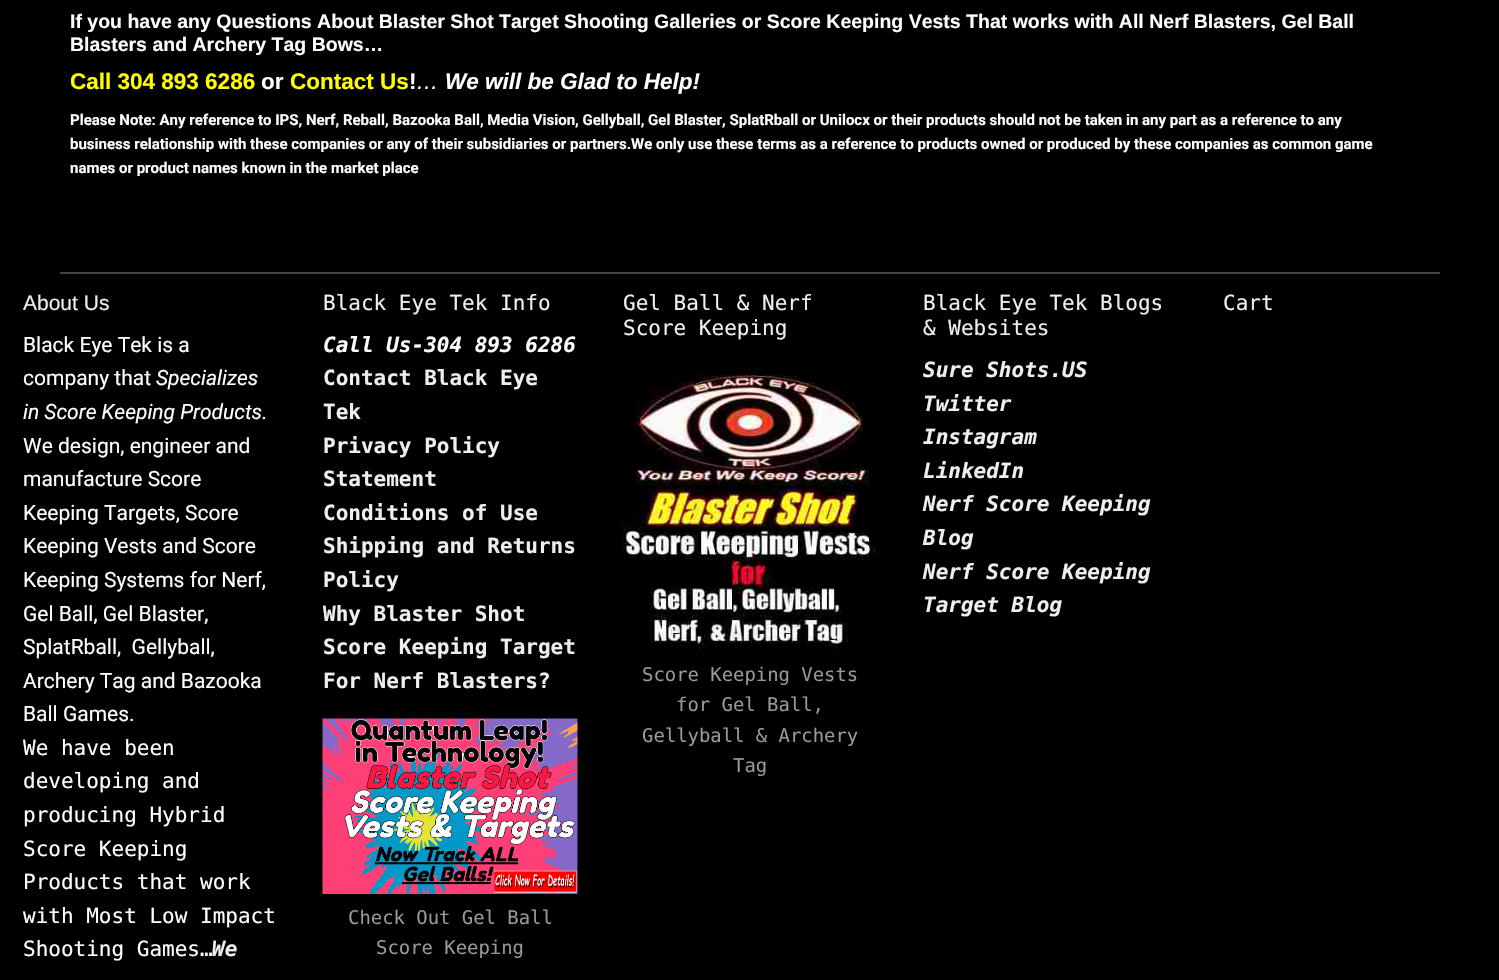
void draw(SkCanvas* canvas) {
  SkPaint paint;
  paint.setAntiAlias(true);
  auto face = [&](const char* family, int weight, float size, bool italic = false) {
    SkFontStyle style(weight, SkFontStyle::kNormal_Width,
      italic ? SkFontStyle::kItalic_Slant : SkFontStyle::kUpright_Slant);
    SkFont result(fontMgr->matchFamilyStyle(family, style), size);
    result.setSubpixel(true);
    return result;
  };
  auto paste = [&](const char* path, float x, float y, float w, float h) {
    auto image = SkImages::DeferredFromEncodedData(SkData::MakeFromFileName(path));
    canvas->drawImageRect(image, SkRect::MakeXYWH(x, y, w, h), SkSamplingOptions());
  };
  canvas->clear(0xff000000);
  paint.setColor(0xff444444);
  canvas->drawRect(SkRect::MakeXYWH(60, 272, 1380, 2), paint);
  paste("img/1.png", 322, 718, 256, 176);
  paste("img/2.png", 622, 374, 253, 276);
  auto f0 = face("Liberation Sans", 700, 19.5f);
  paint.setColor(0xffffffff);
  canvas->drawString("If you have any Questions About Blaster Shot Target Shooting Galleries or Score Keeping Vests That works with All Nerf Blasters, Gel Ball", 70, 28, f0, paint);
  canvas->drawString("Blasters and Archery Tag Bows…", 70, 51, f0, paint);
  auto f1 = face("Liberation Sans", 700, 22.5f);
  paint.setColor(0xffffff00);
  canvas->drawString("Call 304 893 6286", 70, 89, f1, paint);
  paint.setColor(0xffffffff);
  canvas->drawString("or", 261, 89, f1, paint);
  paint.setColor(0xffffff00);
  canvas->drawString("Contact Us", 290, 89, f1, paint);
  paint.setColor(0xffffffff);
  canvas->drawString("!", 409, 89, f1, paint);
  auto f2 = face("Liberation Sans", 400, 22.5f, true);
  canvas->drawString("…", 416, 89, f2, paint);
  auto f3 = face("Liberation Sans", 700, 22.5f, true);
  canvas->drawString("We will be Glad to Help!", 445, 89, f3, paint);
  auto f4 = face("Roboto", 700, 15);
  {
    const struct { const char* s; float x, y; } items[] = {
      {"Please Note: Any reference to IPS, Nerf, Reball, Bazooka Ball, Media Vision, Gellyball, Gel Blaster, SplatRball or Unilocx or their products should not be taken in any part as a reference to any", 70, 125},
      {"business relationship with these companies or any of their subsidiaries or partners.We only use these terms as a reference to products owned or produced by these companies as common game", 70, 149},
      {"names or product names known in the market place", 70, 173},
    };
    for (auto [s, x, y] : items) {
      canvas->drawString(s, x, y, f4, paint);
    }
  }
  auto f5 = face("Liberation Sans", 400, 21);
  paint.setColor(0xffeeeeee);
  canvas->drawString("About Us", 23, 310, f5, paint);
  auto f6 = face("Roboto", 400, 21);
  paint.setColor(0xffffffff);
  canvas->drawString("Black Eye Tek is a", 23, 352, f6, paint);
  canvas->drawString("company that", 23, 385, f6, paint);
  auto f7 = face("Roboto", 400, 21, true);
  canvas->drawString("Specializes", 156, 385, f7, paint);
  canvas->drawString("in Score Keeping Products.", 23, 419, f7, paint);
  {
    const struct { const char* s; float x, y; } items[] = {
      {"We design, engineer and", 23, 453},
      {"manufacture Score", 23, 486},
      {"Keeping Targets, Score", 23, 520},
      {"Keeping Vests and Score", 23, 553},
      {"Keeping Systems for Nerf,", 23, 587},
      {"Gel Ball, Gel Blaster,", 23, 621},
      {"SplatRball,  Gellyball,", 23, 654},
      {"Archery Tag and Bazooka", 23, 688},
      {"Ball Games.", 23, 721},
    };
    for (auto [s, x, y] : items) {
      canvas->drawString(s, x, y, f6, paint);
    }
  }
  auto f8 = face("DejaVu Sans Mono", 400, 21);
  {
    const struct { const char* s; float x, y; } items[] = {
      {"We have been", 23, 755},
      {"developing and", 23, 788},
      {"producing Hybrid", 23, 822},
      {"Score Keeping", 23, 856},
      {"Products that work", 23, 889},
      {"with Most Low Impact", 23, 923},
      {"Shooting Games…", 23, 956},
    };
    for (auto [s, x, y] : items) {
      canvas->drawString(s, x, y, f8, paint);
    }
  }
  auto f9 = face("DejaVu Sans Mono", 700, 21, true);
  paint.setColor(0xffeeeeee);
  canvas->drawString("We", 212, 956, f9, paint);
  canvas->drawString("Black Eye Tek Info", 323, 310, f8, paint);
  paint.setColor(0xffffffff);
  canvas->drawString("Call Us-304 893 6286", 323, 352, f9, paint);
  auto f10 = face("DejaVu Sans Mono", 700, 21);
  paint.setColor(0xffeeeeee);
  {
    const struct { const char* s; float x, y; } items[] = {
      {"Contact Black Eye", 323, 385},
      {"Tek", 323, 419},
      {"Privacy Policy", 323, 453},
      {"Statement", 323, 486},
      {"Conditions of Use", 323, 520},
      {"Shipping and Returns", 323, 553},
      {"Policy", 323, 587},
      {"Why Blaster Shot", 323, 621},
      {"Score Keeping Target", 323, 654},
      {"For Nerf Blasters?", 323, 688},
    };
    for (auto [s, x, y] : items) {
      canvas->drawString(s, x, y, f10, paint);
    }
  }
  auto f11 = face("DejaVu Sans Mono", 400, 18.9f);
  paint.setColor(0xff999999);
  canvas->drawString("Check Out Gel Ball", 348, 924, f11, paint);
  canvas->drawString("Score Keeping", 376, 954, f11, paint);
  paint.setColor(0xffeeeeee);
  canvas->drawString("Gel Ball & Nerf", 623, 310, f8, paint);
  canvas->drawString("Score Keeping", 623, 335, f8, paint);
  paint.setColor(0xff999999);
  {
    const struct { const char* s; float x, y; } items[] = {
      {"Score Keeping Vests", 642, 681},
      {"for Gel Ball,", 676, 711},
      {"Gellyball & Archery", 642, 742},
      {"Tag", 733, 772},
    };
    for (auto [s, x, y] : items) {
      canvas->drawString(s, x, y, f11, paint);
    }
  }
  paint.setColor(0xffeeeeee);
  canvas->drawString("Black Eye Tek Blogs", 923, 310, f8, paint);
  canvas->drawString("& Websites", 923, 335, f8, paint);
  {
    const struct { const char* s; float x, y; } items[] = {
      {"Sure Shots.US", 923, 377},
      {"Twitter", 923, 411},
      {"Instagram", 923, 444},
      {"LinkedIn", 923, 478},
      {"Nerf Score Keeping", 923, 511},
      {"Blog", 923, 545},
      {"Nerf Score Keeping", 923, 579},
      {"Target Blog", 923, 612},
    };
    for (auto [s, x, y] : items) {
      canvas->drawString(s, x, y, f9, paint);
    }
  }
  canvas->drawString("Cart", 1223, 310, f8, paint);
}
